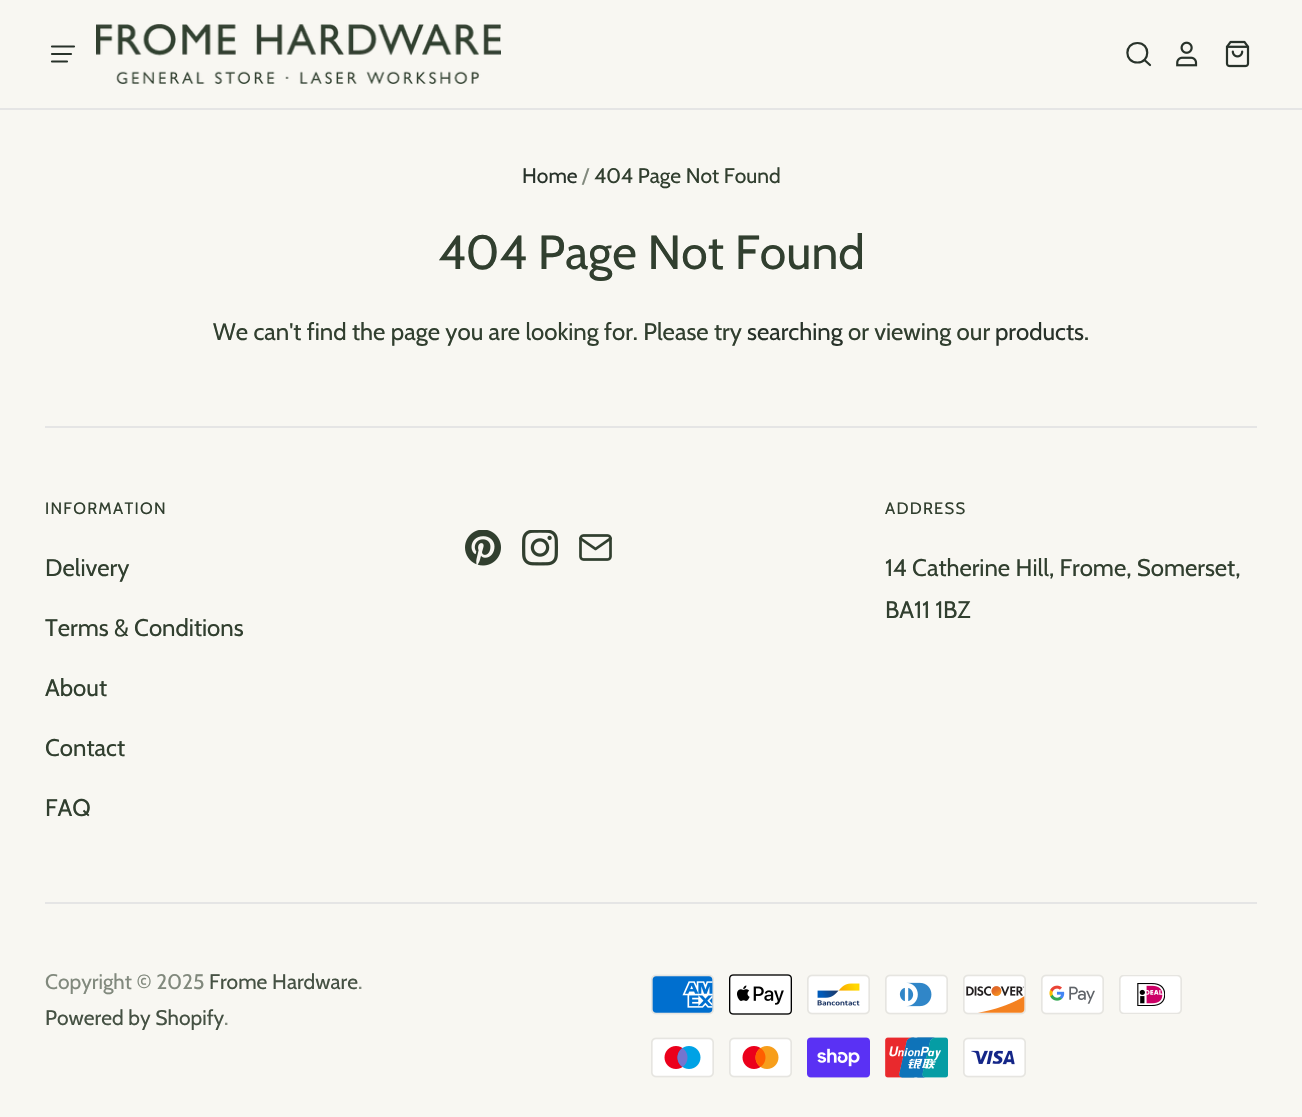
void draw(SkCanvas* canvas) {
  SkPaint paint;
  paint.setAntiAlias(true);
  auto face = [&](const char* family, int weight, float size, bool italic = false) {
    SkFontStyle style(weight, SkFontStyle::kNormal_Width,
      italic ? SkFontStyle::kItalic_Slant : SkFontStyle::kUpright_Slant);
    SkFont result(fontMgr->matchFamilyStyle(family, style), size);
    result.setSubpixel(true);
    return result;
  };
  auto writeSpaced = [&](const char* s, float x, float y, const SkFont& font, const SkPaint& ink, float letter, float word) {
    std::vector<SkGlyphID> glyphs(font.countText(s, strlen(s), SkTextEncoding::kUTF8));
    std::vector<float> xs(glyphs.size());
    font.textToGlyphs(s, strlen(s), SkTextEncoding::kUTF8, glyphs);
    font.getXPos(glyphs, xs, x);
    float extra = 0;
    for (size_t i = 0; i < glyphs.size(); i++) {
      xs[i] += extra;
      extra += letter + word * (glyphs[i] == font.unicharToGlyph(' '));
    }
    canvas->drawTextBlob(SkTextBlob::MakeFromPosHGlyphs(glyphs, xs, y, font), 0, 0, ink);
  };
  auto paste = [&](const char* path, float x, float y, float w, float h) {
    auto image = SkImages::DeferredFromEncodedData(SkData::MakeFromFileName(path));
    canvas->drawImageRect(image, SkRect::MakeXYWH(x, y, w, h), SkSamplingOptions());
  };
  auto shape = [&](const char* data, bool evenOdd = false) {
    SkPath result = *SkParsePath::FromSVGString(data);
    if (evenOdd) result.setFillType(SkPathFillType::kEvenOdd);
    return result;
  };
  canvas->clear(0xfff8f7f2);
  paint.setColor(0xffe5e5e5);
  canvas->drawRect(SkRect::MakeXYWH(0, 108, 1302, 2), paint);
  paint.setStroke(true);
  paint.setStrokeWidth(2.2f);
  paint.setStrokeCap(SkPaint::kRound_Cap);
  paint.setStrokeJoin(SkPaint::kRound_Join);
  paint.setColor(0xff28322a);
  canvas->drawPath(shape("M52 46.5H74M52 54H71M52 61.5H67"), paint);
  paste("img/1.png", 96, 24, 405, 60);
  canvas->drawPath(shape("M1137.5 43C1124 43 1124 62.5 1137.5 62.5C1150.5 62.5 1150.5 43 1137.5 43ZM1150 65L1144.5 60Z"), paint);
  paste("img/2.png", 1176, 41, 22, 26);
  paste("img/3.png", 1225, 40, 25, 28);
  paint.setStroke(false);
  paint.setColor(0xffe5e5e5);
  canvas->drawRect(SkRect::MakeXYWH(45, 426, 1212, 2), paint);
  paste("img/4.png", 465, 530, 36, 36);
  paste("img/5.png", 522, 530, 36, 36);
  paste("img/6.png", 579, 534, 33, 27);
  canvas->drawRect(SkRect::MakeXYWH(45, 902, 1212, 2), paint);
  paste("img/7.png", 651, 974, 63, 41);
  paste("img/8.png", 729, 974, 63, 41);
  paste("img/9.png", 807, 974, 63, 41);
  paste("img/10.png", 885, 974, 63, 41);
  paste("img/11.png", 963, 974, 63, 41);
  paste("img/12.png", 1041, 974, 63, 41);
  paste("img/13.png", 1119, 975, 63, 39);
  paste("img/14.png", 651, 1037, 63, 41);
  paste("img/15.png", 729, 1037, 63, 41);
  paste("img/16.png", 807, 1037, 63, 41);
  paste("img/17.png", 885, 1037, 63, 41);
  paste("img/18.png", 963, 1037, 63, 41);
  auto f0 = face("Cabin", 400, 21);
  paint.setColor(0xff28322a);
  canvas->drawString("Home", 522, 183, f0, paint);
  paint.setColor(0xff81897d);
  canvas->drawString("/", 582, 183, f0, paint);
  paint.setColor(0xff313f2f);
  canvas->drawString("404 Page Not Found", 594, 183, f0, paint);
  auto f1 = face("Cabin", 400, 48);
  canvas->drawString("404 Page Not Found", 438, 269, f1, paint);
  auto f2 = face("Cabin", 400, 24);
  canvas->drawString("We can't find the page you are looking for. Please try", 213, 340, f2, paint);
  paint.setColor(0xff28322a);
  canvas->drawString("searching", 747, 340, f2, paint);
  paint.setColor(0xff313f2f);
  canvas->drawString("or viewing our", 848, 340, f2, paint);
  paint.setColor(0xff28322a);
  canvas->drawString("products", 995, 340, f2, paint);
  paint.setColor(0xff313f2f);
  canvas->drawString(".", 1084, 340, f2, paint);
  auto f3 = face("Cabin", 400, 16.5f);
  writeSpaced("INFORMATION", 45, 514, f3, paint, 1.25f, 0);
  {
    const struct { const char* s; float x, y; } items[] = {
      {"Delivery", 45, 576},
      {"Terms & Conditions", 45, 636},
      {"About", 45, 696},
      {"Contact", 45, 756},
      {"FAQ", 45, 816},
    };
    for (auto [s, x, y] : items) {
      canvas->drawString(s, x, y, f2, paint);
    }
  }
  writeSpaced("ADDRESS", 885, 514, f3, paint, 1.25f, 0);
  canvas->drawString("14 Catherine Hill, Frome, Somerset,", 885, 576, f2, paint);
  canvas->drawString("BA11 1BZ", 885, 618, f2, paint);
  paint.setColor(0xff81897d);
  canvas->drawString("Copyright © 2025", 45, 989, f0, paint);
  paint.setColor(0xff455143);
  canvas->drawString("Frome Hardware", 209, 989, f0, paint);
  paint.setColor(0xff81897d);
  canvas->drawString(".", 358, 989, f0, paint);
  paint.setColor(0xff455143);
  canvas->drawString("Powered by Shopify", 45, 1025, f0, paint);
  paint.setColor(0xff81897d);
  canvas->drawString(".", 224, 1025, f0, paint);
}
